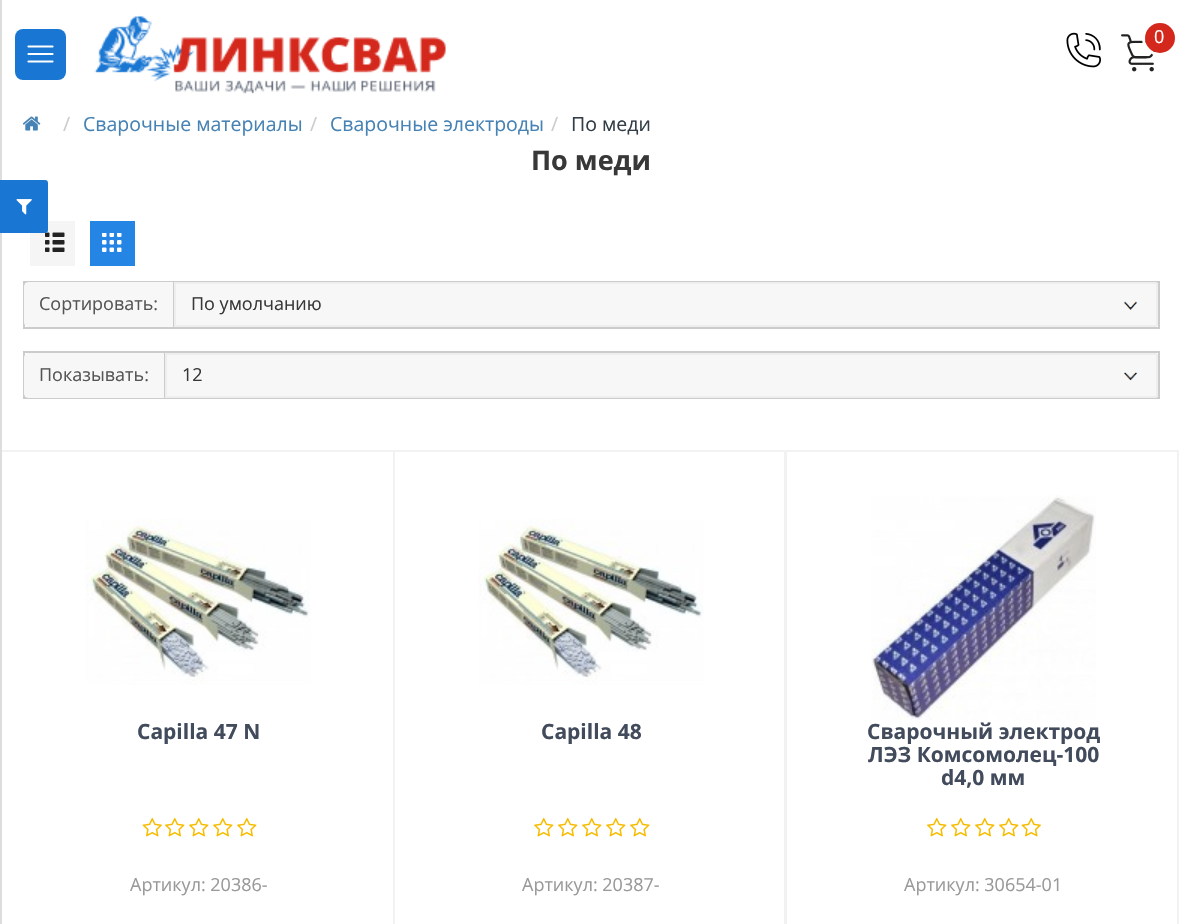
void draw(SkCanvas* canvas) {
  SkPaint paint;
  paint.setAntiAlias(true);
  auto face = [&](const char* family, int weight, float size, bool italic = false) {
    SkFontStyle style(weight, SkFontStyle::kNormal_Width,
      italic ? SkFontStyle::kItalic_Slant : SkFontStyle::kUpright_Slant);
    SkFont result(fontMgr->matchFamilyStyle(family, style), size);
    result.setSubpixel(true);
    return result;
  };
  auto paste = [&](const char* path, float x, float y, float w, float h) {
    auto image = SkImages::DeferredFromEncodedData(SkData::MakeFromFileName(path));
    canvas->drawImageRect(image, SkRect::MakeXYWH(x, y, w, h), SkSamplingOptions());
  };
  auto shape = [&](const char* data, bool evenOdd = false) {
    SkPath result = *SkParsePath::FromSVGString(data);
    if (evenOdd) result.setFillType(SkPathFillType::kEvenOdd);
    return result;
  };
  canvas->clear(0xffffffff);
  paint.setStroke(true);
  paint.setStrokeWidth(2);
  paint.setColor(0xfff2f2f2);
  canvas->drawRect(SkRect::MakeXYWH(1, 451, 393, 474), paint);
  paint.setStroke(false);
  paint.setColor(0xffdddddd);
  canvas->drawRect(SkRect::MakeXYWH(0, 0, 2, 924), paint);
  paint.setColor(0xff1976d2);
  canvas->drawRoundRect(SkRect::MakeXYWH(15, 29, 51, 51), 8, 8, paint);
  paint.setStroke(true);
  paint.setStrokeWidth(2.2f);
  paint.setStrokeCap(SkPaint::kRound_Cap);
  paint.setStrokeJoin(SkPaint::kRound_Join);
  paint.setColor(0xffffffff);
  canvas->drawPath(shape("M28.5 61.5H52.5M28.5 54H52.5M28.5 46.5H52.5"), paint);
  paste("img/1.png", 94, 15, 352, 79);
  paste("img/2.png", 1066, 32, 35, 36);
  paste("img/3.png", 1121, 34, 34, 38);
  paint.setStrokeWidth(3);
  paint.setStrokeCap(SkPaint::kButt_Cap);
  paint.setStrokeJoin(SkPaint::kMiter_Join);
  canvas->drawCircle(1160, 38, 16.5f, paint);
  paint.setStroke(false);
  paint.setColor(0xffd4281d);
  canvas->drawCircle(1160, 38, 15, paint);
  paint.setColor(0xfff5f5f5);
  canvas->drawRect(SkRect::MakeXYWH(30, 221, 45, 45), paint);
  paste("img/6.png", 45, 232, 20, 20);
  paint.setColor(0xff1976d2);
  canvas->drawPath(shape("M1 181H45C46 181 47 182 47 183V230C47 231 46 232 45 232H1Z"), paint);
  paint.setStroke(true);
  paint.setStrokeWidth(2);
  canvas->drawPath(shape("M1 181H45C46 181 47 182 47 183V230C47 231 46 232 45 232H1Z"), paint);
  paste("img/4.png", 16, 199, 16, 16);
  paste("img/5.png", 23, 116, 18, 15);
  paint.setStroke(false);
  paint.setColor(0xff2585e5);
  canvas->drawRect(SkRect::MakeXYWH(90, 221, 45, 45), paint);
  paste("img/7.png", 102, 233, 20, 19);
  paint.setStroke(true);
  paint.setColor(0xffcccccc);
  canvas->drawRect(SkRect::MakeXYWH(24, 282, 1135, 46), paint);
  paint.setStroke(false);
  paint.setColor(0xfff7f7f7);
  canvas->drawPath(shape("M29 282H174V327H29C26 327 24 325 24 322V287C24 284 26 282 29 282Z"), paint);
  paint.setColor(0xffcccccc);
  canvas->drawRect(SkRect::MakeXYWH(173, 282, 1, 45), paint);
  paint.setColor(0xfff7f7f7);
  canvas->drawPath(shape("M174 282H1155C1156.5 282 1158 283.5 1158 285V324C1158 325.5 1156.5 327 1155 327H174Z"), paint);
  paste("img/8.png", 1123, 301, 15, 9);
  paint.setStroke(true);
  paint.setColor(0xffeeeeee);
  canvas->drawPath(shape("M175 283H1155C1156 283 1157 284 1157 285V324C1157 325 1156 326 1155 326H175Z"), paint);
  paint.setColor(0xffcccccc);
  canvas->drawRect(SkRect::MakeXYWH(24, 352, 1135, 46), paint);
  paint.setStroke(false);
  paint.setColor(0xfff7f7f7);
  canvas->drawPath(shape("M29 353H165V398H29C26 398 24 396 24 393V358C24 355 26 353 29 353Z"), paint);
  paint.setColor(0xffcccccc);
  canvas->drawRect(SkRect::MakeXYWH(164, 353, 1, 45), paint);
  paint.setColor(0xfff7f7f7);
  canvas->drawPath(shape("M165 353H1155C1156.5 353 1158 354.5 1158 356V395C1158 396.5 1156.5 398 1155 398H165Z"), paint);
  paste("img/9.png", 1123, 372, 15, 9);
  paint.setStroke(true);
  paint.setColor(0xffeeeeee);
  canvas->drawPath(shape("M166 354H1155C1156 354 1157 355 1157 356V395C1157 396 1156 397 1155 397H166Z"), paint);
  paste("img/10.png", 85, 519, 226, 166);
  paste("img/11.png", 142, 817, 20, 20);
  paste("img/12.png", 165, 817, 20, 20);
  paste("img/12.png", 189, 817, 20, 20);
  paste("img/12.png", 213, 817, 20, 20);
  paste("img/12.png", 237, 817, 20, 20);
  paint.setColor(0xfff2f2f2);
  canvas->drawRect(SkRect::MakeXYWH(394, 451, 391, 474), paint);
  paste("img/10.png", 478, 519, 226, 166);
  paste("img/12.png", 534, 817, 20, 20);
  paste("img/12.png", 558, 817, 20, 20);
  paste("img/12.png", 582, 817, 20, 20);
  paste("img/12.png", 606, 817, 20, 20);
  paste("img/12.png", 630, 817, 20, 20);
  canvas->drawRect(SkRect::MakeXYWH(786, 451, 392, 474), paint);
  paste("img/13.png", 871, 495, 225, 225);
  paste("img/12.png", 927, 817, 20, 20);
  paste("img/12.png", 951, 817, 20, 20);
  paste("img/12.png", 975, 817, 20, 20);
  paste("img/12.png", 999, 817, 20, 20);
  paste("img/11.png", 1021, 817, 20, 20);
  auto f0 = face("Open Sans", 400, 18);
  paint.setStroke(false);
  paint.setColor(0xffffffff);
  canvas->drawString("0", 1154, 43, f0, paint);
  auto f1 = face("Open Sans", 400, 19.5f);
  paint.setColor(0xffcccccc);
  canvas->drawString("/", 63, 131, f1, paint);
  paint.setColor(0xff4682b4);
  canvas->drawString("Сварочные материалы", 83, 131, f1, paint);
  paint.setColor(0xffcccccc);
  canvas->drawString("/", 310, 131, f1, paint);
  paint.setColor(0xff4682b4);
  canvas->drawString("Сварочные электроды", 330, 131, f1, paint);
  paint.setColor(0xffcccccc);
  canvas->drawString("/", 551, 131, f1, paint);
  paint.setColor(0xff333e48);
  canvas->drawString("По меди", 571, 131, f1, paint);
  auto f2 = face("Open Sans", 700, 27);
  paint.setColor(0xff383838);
  canvas->drawString("По меди", 531, 170, f2, paint);
  paint.setColor(0xff555555);
  canvas->drawString("Сортировать:", 39, 310, f0, paint);
  paint.setColor(0xff383838);
  canvas->drawString("По умолчанию", 191, 310, f0, paint);
  paint.setColor(0xff555555);
  canvas->drawString("Показывать:", 39, 381, f0, paint);
  paint.setColor(0xff383838);
  canvas->drawString("12", 182, 381, f0, paint);
  auto f3 = face("Open Sans", 700, 21);
  paint.setColor(0xff424b5c);
  canvas->drawString("Capilla 47 N", 137, 739, f3, paint);
  paint.setColor(0xff999999);
  canvas->drawString("Артикул: 20386-", 130, 891, f0, paint);
  paint.setColor(0xff424b5c);
  canvas->drawString("Capilla 48", 541, 739, f3, paint);
  paint.setColor(0xff999999);
  canvas->drawString("Артикул: 20387-", 522, 891, f0, paint);
  paint.setColor(0xff424b5c);
  {
    const struct { const char* s; float x, y; } items[] = {
      {"Сварочный электрод", 867, 739},
      {"ЛЭЗ Комсомолец-100", 868, 762},
      {"d4,0 мм", 941, 785},
    };
    for (auto [s, x, y] : items) {
      canvas->drawString(s, x, y, f3, paint);
    }
  }
  paint.setColor(0xff999999);
  canvas->drawString("Артикул: 30654-01", 904, 891, f0, paint);
}
